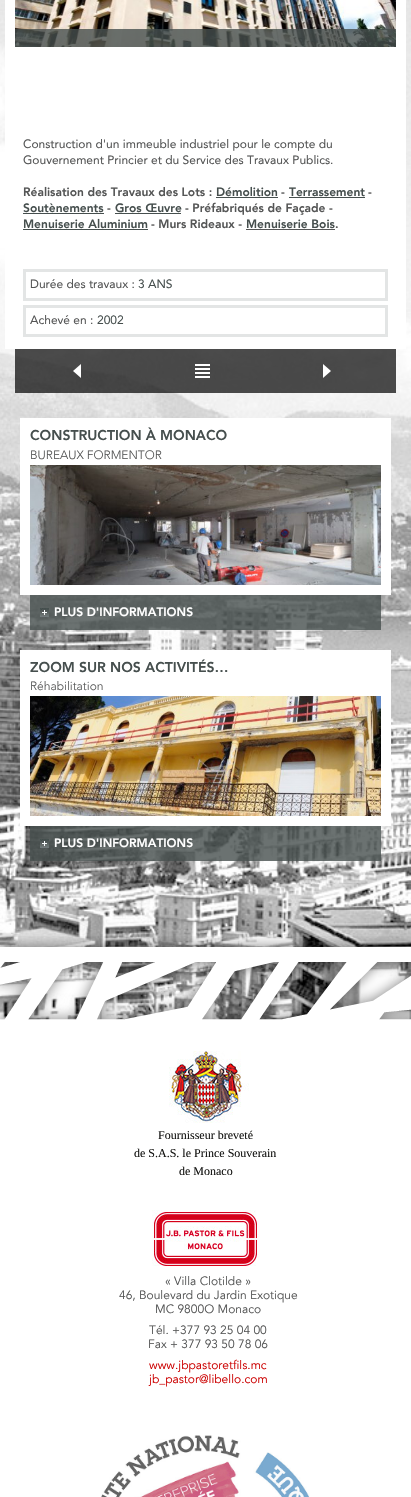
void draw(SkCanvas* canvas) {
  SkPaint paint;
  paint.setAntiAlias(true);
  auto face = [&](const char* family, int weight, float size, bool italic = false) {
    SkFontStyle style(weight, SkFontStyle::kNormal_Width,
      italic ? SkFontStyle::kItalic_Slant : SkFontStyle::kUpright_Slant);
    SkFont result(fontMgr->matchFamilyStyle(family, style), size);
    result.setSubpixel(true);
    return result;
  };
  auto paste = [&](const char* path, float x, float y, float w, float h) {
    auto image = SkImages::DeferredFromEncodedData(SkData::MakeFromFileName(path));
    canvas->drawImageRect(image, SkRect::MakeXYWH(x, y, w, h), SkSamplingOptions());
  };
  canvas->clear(0xffffffff);
  paste("img/1.png", 0, 0, 411, 1020);
  paint.setColor(0xffffffff);
  canvas->drawRect(SkRect::MakeXYWH(5, 0, 401, 349), paint);
  paste("img/2.png", 15, 0, 381, 47);
  {
    const struct { float x, y, w, h; SkColor color; } items[] = {
      {15, 29, 381, 18, 0xcc464f4e},
      {216, 197, 62, 1, 0xff464f4e},
      {289, 197, 76, 1, 0xff464f4e},
      {23, 213, 81, 1, 0xff464f4e},
      {115, 213, 66, 1, 0xff464f4e},
      {23, 229, 125, 1, 0xff464f4e},
      {246, 229, 89, 1, 0xff555656},
    };
    for (auto [x, y, w, h, color] : items) {
      paint.setColor(color);
      canvas->drawRect(SkRect::MakeXYWH(x, y, w, h), paint);
    }
  }
  paint.setStroke(true);
  paint.setStrokeWidth(3);
  paint.setColor(0xffe3e5e5);
  canvas->drawRect(SkRect::MakeXYWH(24.5f, 270.5f, 362, 29), paint);
  canvas->drawRect(SkRect::MakeXYWH(24.5f, 306.5f, 362, 29), paint);
  paint.setStroke(false);
  paint.setColor(0xb3000000);
  canvas->drawRect(SkRect::MakeXYWH(15, 349, 381, 44), paint);
  paste("img/3.png", 73, 364, 8, 14);
  paste("img/4.png", 195, 364, 15, 14);
  paste("img/5.png", 323, 364, 8, 14);
  paint.setColor(0xffffffff);
  canvas->drawRect(SkRect::MakeXYWH(20, 418, 371, 177), paint);
  paste("img/6.png", 30, 465, 351, 120);
  paint.setColor(0xcc464f4e);
  canvas->drawRect(SkRect::MakeXYWH(30, 595, 351, 35), paint);
  paste("img/7.png", 40, 608, 9, 9);
  paint.setColor(0xffffffff);
  canvas->drawRect(SkRect::MakeXYWH(20, 650, 371, 176), paint);
  paste("img/8.png", 30, 696, 351, 120);
  paint.setColor(0xcc464f4e);
  canvas->drawRect(SkRect::MakeXYWH(30, 826, 351, 35), paint);
  paste("img/7.png", 40, 839, 9, 9);
  paste("img/9.png", 0, 936, 411, 244);
  paste("img/10.png", 169, 1051, 80, 72);
  paste("img/11.png", 152, 1210, 107, 56);
  paste("img/12.png", 101, 1435, 209, 62);
  auto f0 = face("Avenir", 400, 12);
  paint.setColor(0xff555656);
  canvas->drawString("Construction d'un immeuble industriel pour le compte du", 23, 148, f0, paint);
  canvas->drawString("Gouvernement Princier et du Service des Travaux Publics.", 23, 164, f0, paint);
  auto f1 = face("Avenir", 900, 12);
  canvas->drawString("Réalisation des Travaux des Lots :", 23, 196, f1, paint);
  paint.setColor(0xff464f4e);
  canvas->drawString("Démolition", 216, 196, f1, paint);
  paint.setColor(0xff555656);
  canvas->drawString("-", 281, 196, f1, paint);
  paint.setColor(0xff464f4e);
  canvas->drawString("Terrassement", 289, 196, f1, paint);
  paint.setColor(0xff555656);
  canvas->drawString("-", 368, 196, f1, paint);
  paint.setColor(0xff464f4e);
  canvas->drawString("Soutènements", 23, 212, f1, paint);
  paint.setColor(0xff555656);
  canvas->drawString("-", 107, 212, f1, paint);
  paint.setColor(0xff464f4e);
  canvas->drawString("Gros Œuvre", 115, 212, f1, paint);
  paint.setColor(0xff555656);
  canvas->drawString("- Préfabriqués de Façade -", 185, 212, f1, paint);
  paint.setColor(0xff464f4e);
  canvas->drawString("Menuiserie Aluminium", 23, 228, f1, paint);
  paint.setColor(0xff555656);
  canvas->drawString("- Murs Rideaux -", 151, 228, f1, paint);
  paint.setColor(0xff464f4e);
  canvas->drawString("Menuiserie Bois", 246, 228, f1, paint);
  paint.setColor(0xff555656);
  canvas->drawString(".", 335, 228, f1, paint);
  canvas->drawString("Durée des travaux :", 30, 288, f0, paint);
  paint.setColor(0xff464f4e);
  canvas->drawString("3 ANS", 138, 288, f0, paint);
  paint.setColor(0xff555656);
  canvas->drawString("Achevé en :", 30, 324, f0, paint);
  paint.setColor(0xff464f4e);
  canvas->drawString("2002", 97, 324, f0, paint);
  auto f2 = face("Avenir", 900, 14);
  canvas->drawString("CONSTRUCTION À MONACO", 30, 440, f2, paint);
  auto f3 = face("Avenir", 300, 12);
  paint.setColor(0xff555656);
  canvas->drawString("BUREAUX FORMENTOR", 30, 459, f3, paint);
  paint.setColor(0xffffffff);
  canvas->drawString("PLUS D'INFORMATIONS", 54, 616, f1, paint);
  paint.setColor(0xff464f4e);
  canvas->drawString("ZOOM SUR NOS ACTIVITÉS…", 30, 672, f2, paint);
  paint.setColor(0xff555656);
  canvas->drawString("Réhabilitation", 30, 690, f3, paint);
  paint.setColor(0xffffffff);
  canvas->drawString("PLUS D'INFORMATIONS", 54, 847, f1, paint);
  auto f4 = face("Liberation Serif", 400, 12);
  paint.setColor(0xff141412);
  {
    const struct { const char* s; float x, y; } items[] = {
      {"Fournisseur breveté", 158, 1139},
      {"de S.A.S. le Prince Souverain", 134, 1157},
      {"de Monaco", 179, 1175},
    };
    for (auto [s, x, y] : items) {
      canvas->drawString(s, x, y, f4, paint);
    }
  }
  auto f5 = face("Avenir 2", 400, 12);
  paint.setColor(0xff555656);
  {
    const struct { const char* s; float x, y; } items[] = {
      {"« Villa Clotilde »", 165, 1285},
      {"46, Boulevard du Jardin Exotique", 119, 1299},
      {"MC 9800O Monaco", 155, 1313},
      {"Tél. +377 93 25 04 00", 149, 1334},
      {"Fax + 377 93 50 78 06", 148, 1348},
    };
    for (auto [s, x, y] : items) {
      canvas->drawString(s, x, y, f5, paint);
    }
  }
  paint.setColor(0xffcc0000);
  canvas->drawString("www.jbpastoretfils.mc", 149, 1369, f5, paint);
  canvas->drawString("jb_pastor@libello.com", 149, 1383, f5, paint);
}
